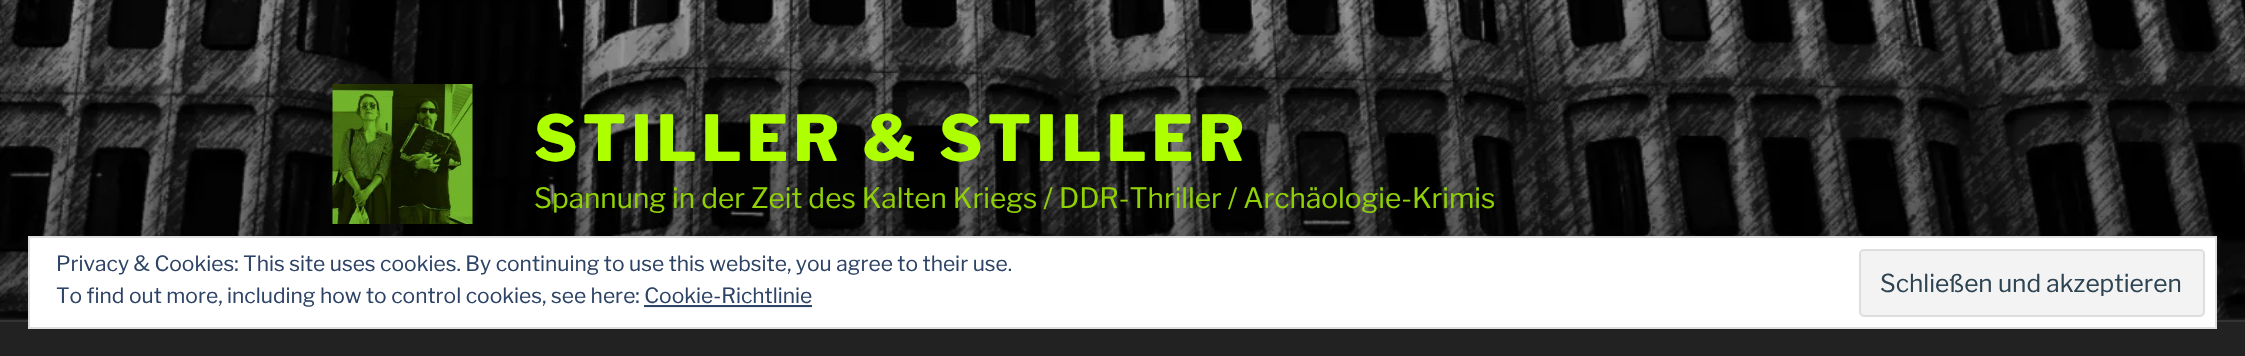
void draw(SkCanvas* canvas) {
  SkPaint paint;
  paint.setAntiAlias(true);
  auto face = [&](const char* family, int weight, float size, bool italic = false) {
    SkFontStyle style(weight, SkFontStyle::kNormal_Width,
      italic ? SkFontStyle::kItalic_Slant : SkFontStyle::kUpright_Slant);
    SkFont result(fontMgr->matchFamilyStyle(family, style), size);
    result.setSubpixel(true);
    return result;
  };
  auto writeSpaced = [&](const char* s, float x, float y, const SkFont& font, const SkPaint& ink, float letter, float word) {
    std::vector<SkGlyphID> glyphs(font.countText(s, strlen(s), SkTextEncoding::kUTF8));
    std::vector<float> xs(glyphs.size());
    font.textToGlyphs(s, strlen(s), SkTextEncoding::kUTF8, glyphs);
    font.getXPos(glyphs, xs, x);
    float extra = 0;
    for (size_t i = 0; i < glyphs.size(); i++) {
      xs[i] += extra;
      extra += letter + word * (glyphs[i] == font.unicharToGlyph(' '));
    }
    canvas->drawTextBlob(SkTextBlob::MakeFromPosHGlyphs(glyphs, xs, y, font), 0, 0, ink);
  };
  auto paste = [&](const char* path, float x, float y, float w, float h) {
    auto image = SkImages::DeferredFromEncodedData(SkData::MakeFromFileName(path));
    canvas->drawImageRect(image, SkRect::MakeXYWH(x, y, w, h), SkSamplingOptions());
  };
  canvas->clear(0xff262626);
  paste("img/1.png", 0, 0, 2245, 319);
  {
    const SkColor colors[] = {0x00000000, 0x4d000000, 0x4d000000};
    const float stops[] = {0, 0.75f, 1};
    const SkPoint ends[] = {{1123, 0}, {1123, 320}};
    paint.setShader(SkGradientShader::MakeLinear(ends, colors, stops, 3, SkTileMode::kClamp));
    paint.setAlpha(255);
  }
  canvas->drawRect(SkRect::MakeXYWH(0, 17, 2245, 303), paint);
  paste("img/2.png", 332, 84, 141, 140);
  paint.setShader(nullptr);
  paint.setColor(0xff222222);
  canvas->drawRect(SkRect::MakeXYWH(0, 322, 2245, 34), paint);
  paint.setColor(0xff333333);
  canvas->drawRect(SkRect::MakeXYWH(0, 320, 2245, 2), paint);
  paint.setColor(0xffffffff);
  canvas->drawRect(SkRect::MakeXYWH(29, 237, 2187, 91), paint);
  paint.setStroke(true);
  paint.setStrokeWidth(2);
  paint.setColor(0xffdedede);
  canvas->drawRect(SkRect::MakeXYWH(29, 237, 2187, 91), paint);
  paint.setStroke(false);
  paint.setColor(0xfff3f3f3);
  canvas->drawRoundRect(SkRect::MakeXYWH(1860, 250, 344, 66), 4, 4, paint);
  paint.setStroke(true);
  paint.setColor(0xffdedede);
  canvas->drawRoundRect(SkRect::MakeXYWH(1860, 250, 344, 66), 4, 4, paint);
  paint.setStroke(false);
  paint.setColor(0xff2e4467);
  canvas->drawRect(SkRect::MakeXYWH(644, 305, 168, 2), paint);
  paint.setColor(0xfff0f0f0);
  canvas->drawRect(SkRect::MakeXYWH(644, 307, 168, 1), paint);
  auto f0 = face("Libre Franklin", 100, 63);
  paint.setColor(0xffaeff00);
  writeSpaced("STILLER & STILLER", 534, 161, f0, paint, 5, 0);
  auto f1 = face("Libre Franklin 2", 100, 28);
  paint.setColor(0xff90d105);
  canvas->drawString("Spannung in der Zeit des Kalten Kriegs / DDR-Thriller / Archäologie-Krimis", 534, 208, f1, paint);
  auto f2 = face("Libre Franklin 2", 100, 21);
  paint.setColor(0xff2e4467);
  canvas->drawString("Privacy & Cookies: This site uses cookies. By continuing to use this website, you agree to their use.", 56, 271, f2, paint);
  canvas->drawString("To find out more, including how to control cookies, see here: Cookie-Richtlinie", 56, 303, f2, paint);
  auto f3 = face("Libre Franklin 2", 100, 24.5f);
  paint.setColor(0xff2e4453);
  canvas->drawString("Schließen und akzeptieren", 1880, 292, f3, paint);
}
